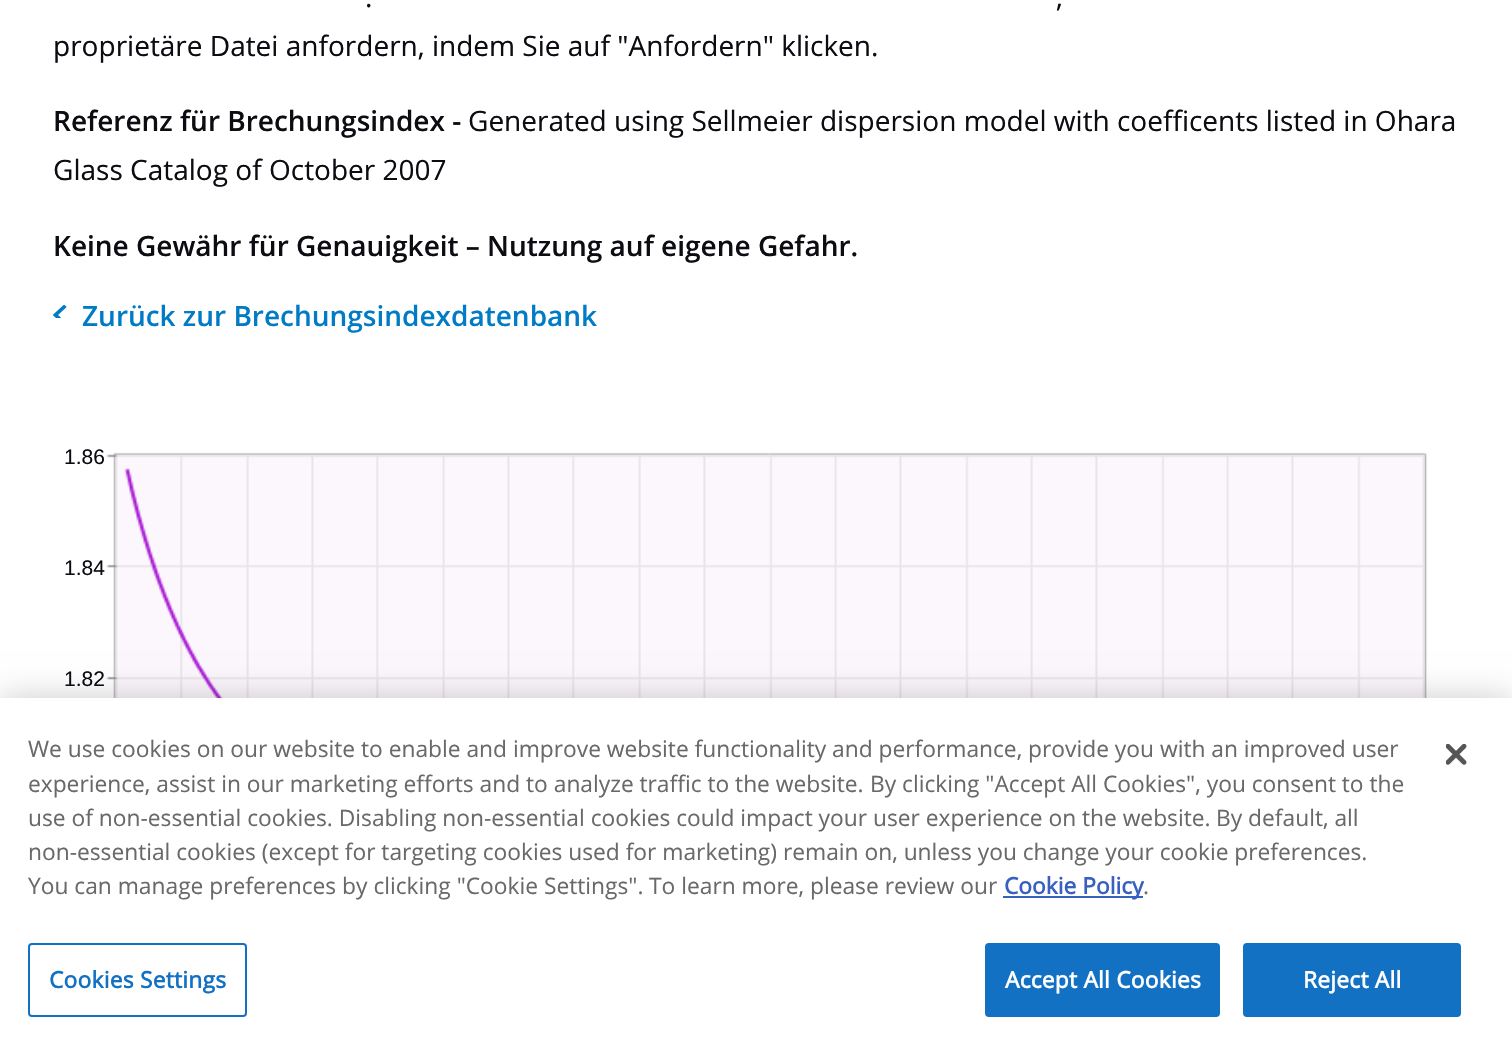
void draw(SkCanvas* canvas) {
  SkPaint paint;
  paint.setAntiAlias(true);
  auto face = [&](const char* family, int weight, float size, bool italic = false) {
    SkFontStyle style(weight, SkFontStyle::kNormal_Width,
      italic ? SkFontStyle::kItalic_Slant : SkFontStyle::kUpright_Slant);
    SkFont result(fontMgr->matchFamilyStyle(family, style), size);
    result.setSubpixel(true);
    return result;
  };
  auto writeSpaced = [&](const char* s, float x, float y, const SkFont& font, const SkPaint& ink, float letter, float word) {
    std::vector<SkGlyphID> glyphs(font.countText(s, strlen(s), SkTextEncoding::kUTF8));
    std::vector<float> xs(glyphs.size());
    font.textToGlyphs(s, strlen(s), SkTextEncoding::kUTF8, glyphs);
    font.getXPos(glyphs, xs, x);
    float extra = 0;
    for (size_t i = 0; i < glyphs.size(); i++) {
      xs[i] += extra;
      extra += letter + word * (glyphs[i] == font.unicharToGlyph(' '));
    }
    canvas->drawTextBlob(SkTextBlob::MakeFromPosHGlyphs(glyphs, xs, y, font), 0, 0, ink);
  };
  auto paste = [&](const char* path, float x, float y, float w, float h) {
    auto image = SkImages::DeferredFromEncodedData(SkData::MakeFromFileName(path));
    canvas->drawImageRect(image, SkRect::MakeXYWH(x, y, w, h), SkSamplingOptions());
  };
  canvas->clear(0xffffffff);
  paste("img/1.png", 53, 305, 14, 13);
  paste("img/3.png", 113, 452, 1314, 246);
  paste("img/4.png", 115, 454, 1310, 244);
  paste("img/2.png", 106, 454, 12, 226);
  paste("img/5.png", 124, 468, 99, 230);
  paint.setColor(0x33000000);
  paint.setMaskFilter(SkMaskFilter::MakeBlur(kNormal_SkBlurStyle, 16));
  canvas->drawRect(SkRect::MakeXYWH(0, 698, 1512, 345), paint);
  paint.setMaskFilter(nullptr);
  paint.setColor(0xffffffff);
  canvas->drawRect(SkRect::MakeXYWH(0, 698, 1512, 345), paint);
  paint.setColor(0xff3860be);
  canvas->drawRect(SkRect::MakeXYWH(1003, 896, 140, 2), paint);
  paint.setStroke(true);
  paint.setStrokeWidth(2);
  paint.setColor(0xff1371c3);
  canvas->drawRoundRect(SkRect::MakeXYWH(29, 944, 217, 72), 3, 3, paint);
  paint.setStroke(false);
  canvas->drawRoundRect(SkRect::MakeXYWH(986, 944, 233, 72), 3, 3, paint);
  paint.setStroke(true);
  canvas->drawRoundRect(SkRect::MakeXYWH(986, 944, 233, 72), 3, 3, paint);
  paint.setStroke(false);
  canvas->drawRoundRect(SkRect::MakeXYWH(1244, 944, 216, 72), 3, 3, paint);
  paint.setStroke(true);
  canvas->drawRoundRect(SkRect::MakeXYWH(1244, 944, 216, 72), 3, 3, paint);
  paste("img/6.png", 1446, 744, 21, 21);
  auto f0 = face("Open Sans", 400, 28);
  paint.setStroke(false);
  paint.setColor(0xff0c0c12);
  {
    const struct { const char* s; float x, y; } items[] = {
      {".", 365, 7},
      {",", 1056, 7},
      {"proprietäre Datei anfordern, indem Sie auf \"Anfordern\" klicken.", 53, 56},
    };
    for (auto [s, x, y] : items) {
      canvas->drawString(s, x, y, f0, paint);
    }
  }
  auto f1 = face("Open Sans", 600, 28);
  canvas->drawString("Referenz für Brechungsindex -", 53, 131, f1, paint);
  canvas->drawString("Generated using Sellmeier dispersion model with coefficents listed in Ohara", 468, 131, f0, paint);
  canvas->drawString("Glass Catalog of October 2007", 53, 180, f0, paint);
  canvas->drawString("Keine Gewähr für Genauigkeit – Nutzung auf eigene Gefahr.", 53, 256, f1, paint);
  paint.setColor(0xff007bc6);
  canvas->drawString("Zurück zur Brechungsindexdatenbank", 82, 326, f1, paint);
  auto f2 = face("Liberation Sans", 400, 21);
  paint.setColor(0xff0c0c12);
  {
    const struct { const char* s; float x, y; } items[] = {
      {"1.86", 64, 464},
      {"1.84", 64, 575},
      {"1.82", 64, 686},
    };
    for (auto [s, x, y] : items) {
      canvas->drawString(s, x, y, f2, paint);
    }
  }
  auto f3 = face("Open Sans", 400, 22.75f);
  paint.setColor(0xff696969);
  {
    const struct { const char* s; float x, y; } items[] = {
      {"We use cookies on our website to enable and improve website functionality and performance, provide you with an improved user", 28, 757},
      {"experience, assist in our marketing efforts and to analyze traffic to the website.", 28, 792},
      {"By clicking \"Accept All Cookies\", you consent to the", 870, 792},
      {"use of non-essential cookies. Disabling non-essential cookies could impact your user experience on the website.", 28, 826},
      {"By default, all", 1216, 826},
      {"non-essential cookies (except for targeting cookies used for marketing) remain on, unless you change your cookie preferences.", 28, 860},
      {"You can manage preferences by clicking \"Cookie Settings\".", 28, 894},
      {"To learn more, please review our", 649, 894},
    };
    for (auto [s, x, y] : items) {
      canvas->drawString(s, x, y, f3, paint);
    }
  }
  auto f4 = face("Open Sans", 700, 22.75f);
  paint.setColor(0xff3860be);
  canvas->drawString("Cookie Policy", 1004, 894, f4, paint);
  paint.setColor(0xff696969);
  canvas->drawString(".", 1143, 894, f3, paint);
  paint.setColor(0xff1371c3);
  writeSpaced("Cookies Settings", 49, 988, f4, paint, 0.25f, 0);
  paint.setColor(0xffffffff);
  writeSpaced("Accept All Cookies", 1005, 988, f4, paint, 0.25f, 0);
  writeSpaced("Reject All", 1303, 988, f4, paint, 0.25f, 0);
}
